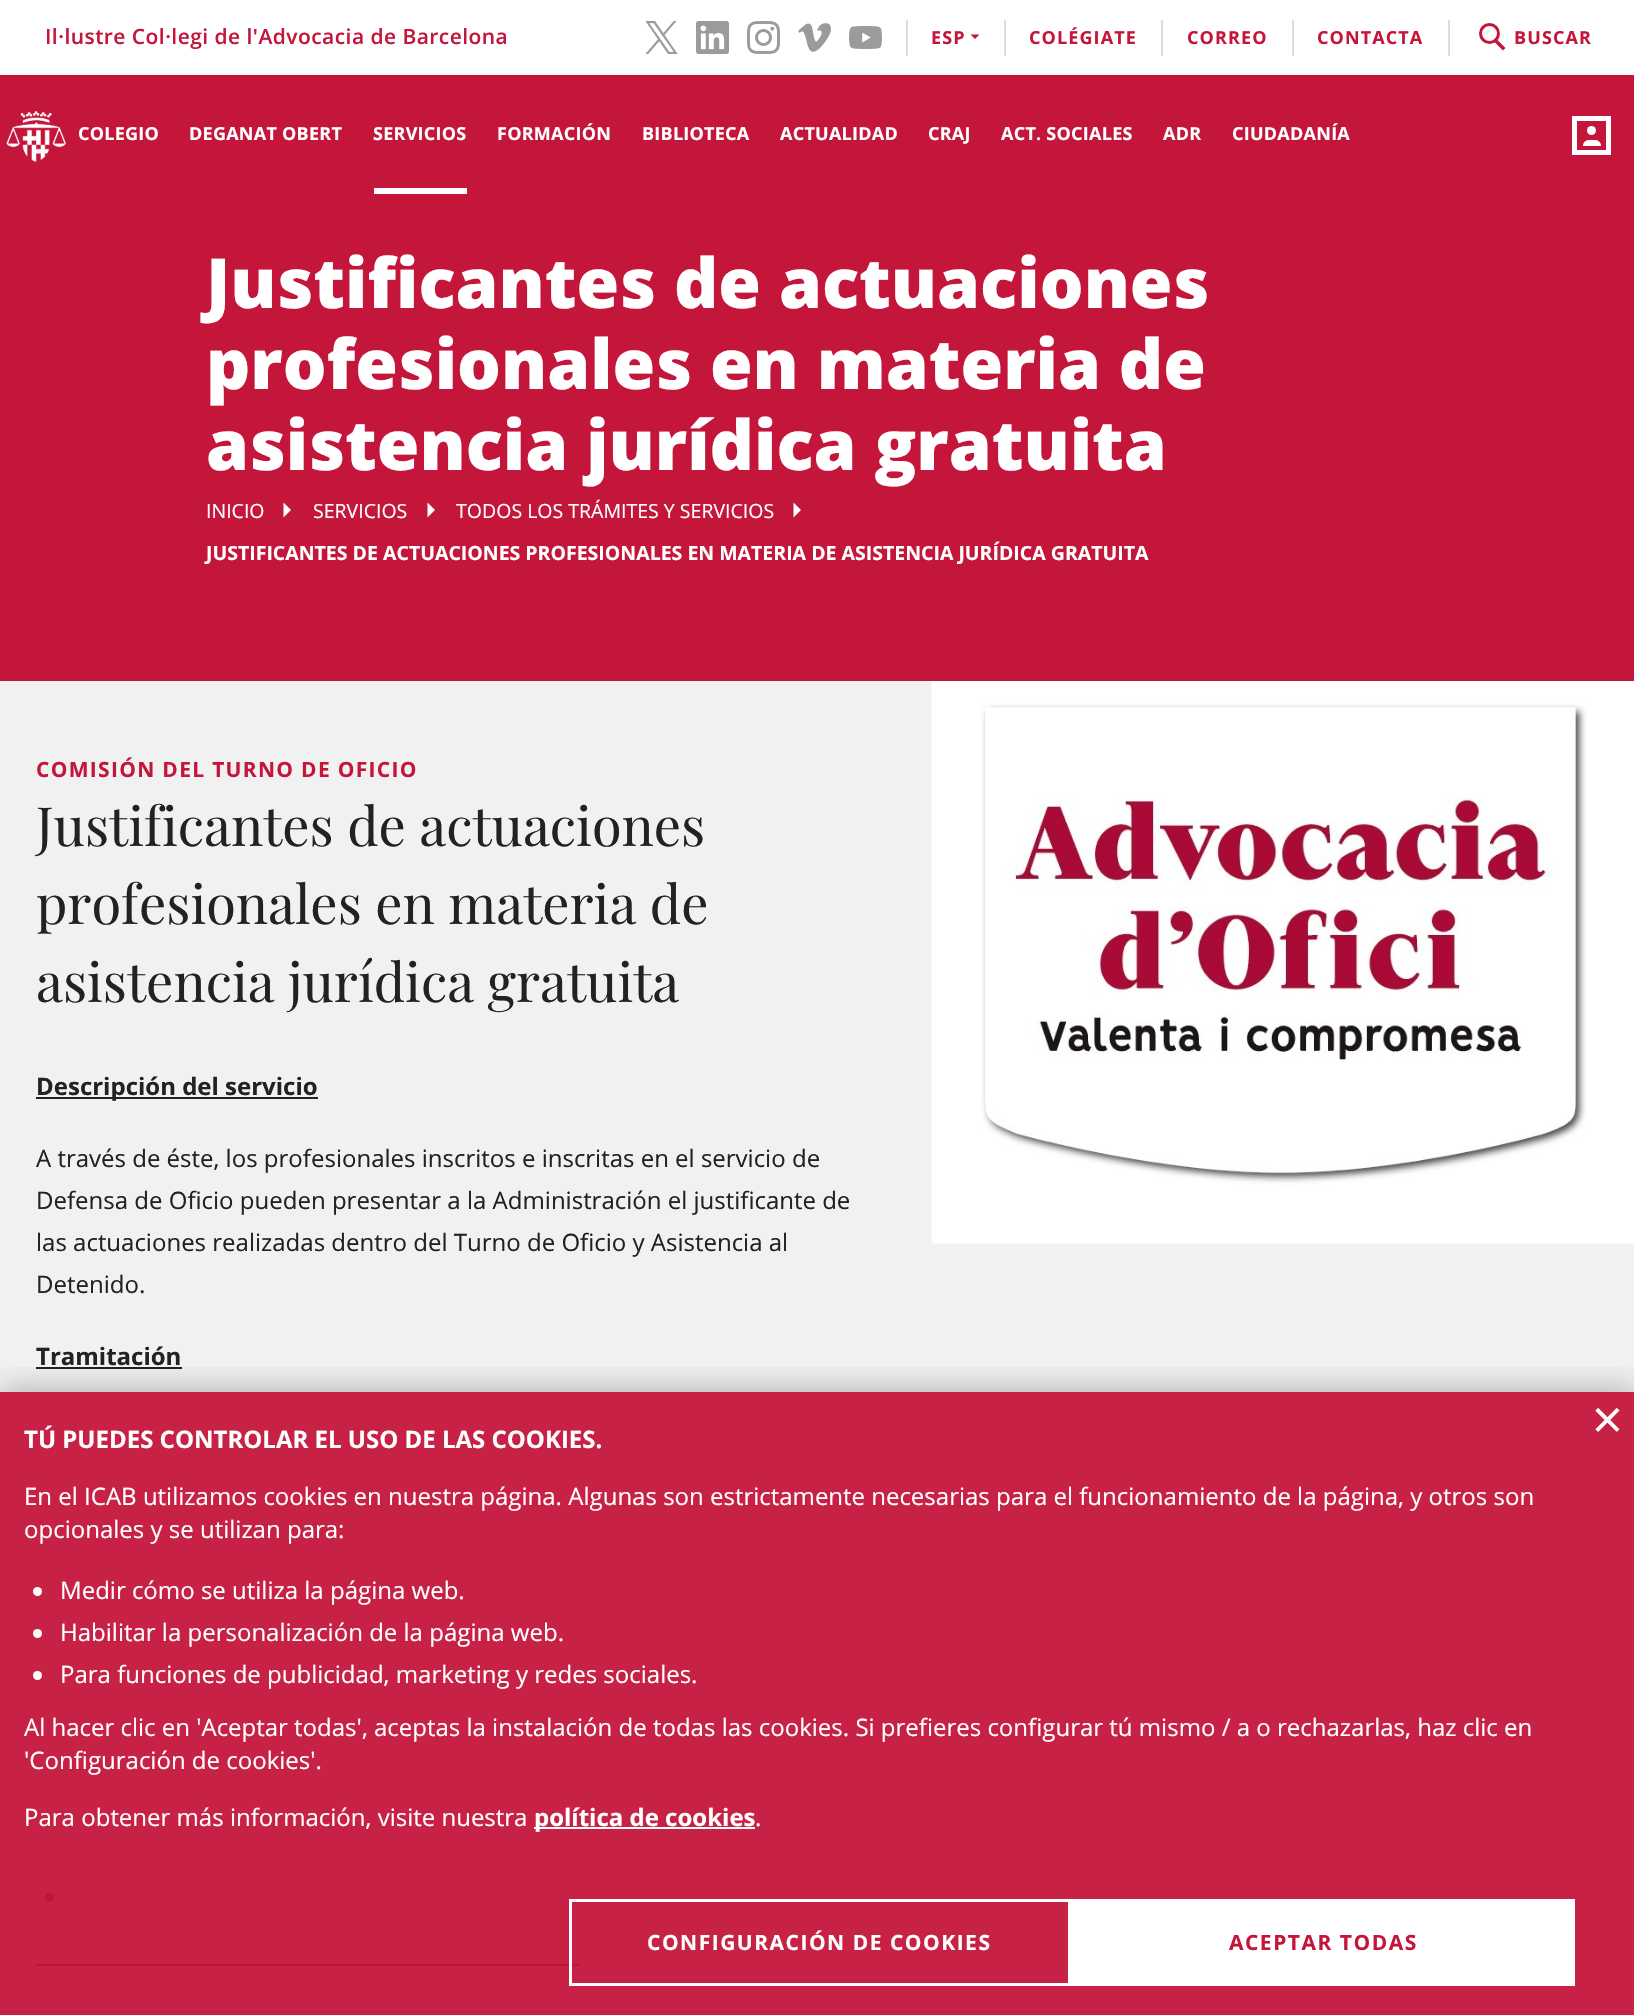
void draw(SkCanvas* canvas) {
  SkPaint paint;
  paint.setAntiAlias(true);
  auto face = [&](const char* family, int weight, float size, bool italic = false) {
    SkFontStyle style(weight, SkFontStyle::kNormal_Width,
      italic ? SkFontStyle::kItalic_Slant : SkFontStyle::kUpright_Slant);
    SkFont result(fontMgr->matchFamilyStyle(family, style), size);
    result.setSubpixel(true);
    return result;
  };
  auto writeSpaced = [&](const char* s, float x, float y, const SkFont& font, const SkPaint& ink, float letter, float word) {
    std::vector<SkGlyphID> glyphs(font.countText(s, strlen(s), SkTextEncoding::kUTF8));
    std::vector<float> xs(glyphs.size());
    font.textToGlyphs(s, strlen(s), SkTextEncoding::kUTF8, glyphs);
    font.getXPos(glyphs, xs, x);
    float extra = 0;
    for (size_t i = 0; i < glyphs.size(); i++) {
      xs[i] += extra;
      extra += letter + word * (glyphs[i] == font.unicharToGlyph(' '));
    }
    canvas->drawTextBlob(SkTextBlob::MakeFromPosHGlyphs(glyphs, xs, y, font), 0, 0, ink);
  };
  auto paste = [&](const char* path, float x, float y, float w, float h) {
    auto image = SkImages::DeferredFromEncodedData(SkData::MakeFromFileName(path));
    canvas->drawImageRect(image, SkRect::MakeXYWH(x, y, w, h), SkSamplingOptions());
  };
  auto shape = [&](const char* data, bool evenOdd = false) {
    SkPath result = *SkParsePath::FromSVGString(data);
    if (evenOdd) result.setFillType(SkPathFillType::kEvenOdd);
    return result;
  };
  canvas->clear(0xffc4153a);
  paint.setColor(0xffffffff);
  canvas->drawRect(SkRect::MakeXYWH(0, 0, 1634, 75), paint);
  paint.setColor(0xffdddddd);
  canvas->drawRect(SkRect::MakeXYWH(906, 20, 2, 36), paint);
  paste("img/1.png", 645, 21, 33, 33);
  paste("img/2.png", 696, 21, 33, 33);
  paste("img/3.png", 747, 21, 33, 33);
  paste("img/4.png", 798, 23, 33, 29);
  paste("img/5.png", 849, 26, 33, 23);
  canvas->drawRect(SkRect::MakeXYWH(1004, 20, 2, 36), paint);
  paint.setColor(0xffc4153a);
  canvas->drawPath(shape("M970.5 34.5H979.5L975 39Z"), paint);
  {
    const struct { float x, y, w, h; SkColor color; } items[] = {
      {1161, 20, 2, 36, 0xffdddddd},
      {1292, 20, 2, 36, 0xffdddddd},
      {1448, 20, 2, 36, 0xffdddddd},
    };
    for (auto [x, y, w, h, color] : items) {
      paint.setColor(color);
      canvas->drawRect(SkRect::MakeXYWH(x, y, w, h), paint);
    }
  }
  paint.setStroke(true);
  paint.setStrokeWidth(3);
  paint.setColor(0xffc4153a);
  canvas->drawCircle(1489.5f, 33.5f, 9, paint);
  paint.setStroke(false);
  canvas->drawPath(shape("M1497 39.5L1505.5 48L1503 50.5L1494.5 42Z"), paint);
  paste("img/6.png", 6, 111, 60, 51);
  paint.setColor(0xffffffff);
  canvas->drawRect(SkRect::MakeXYWH(374, 188, 93, 6), paint);
  paint.setStroke(true);
  paint.setStrokeWidth(5);
  canvas->drawRect(SkRect::MakeXYWH(1574.5f, 118.5f, 34, 34), paint);
  paint.setStroke(false);
  canvas->drawCircle(1591.5f, 130.5f, 4.5f, paint);
  canvas->drawPath(shape("M1589 140H1595C1598.5 140 1601 142.5 1601 146H1583C1583 142.5 1585.5 140 1589 140Z"), paint);
  canvas->drawPath(shape("M283.5 517.5V502.5L291 510Z"), paint);
  canvas->drawPath(shape("M427.5 517.5V502.5L435 510Z"), paint);
  canvas->drawPath(shape("M793.5 517.5V502.5L801 510Z"), paint);
  paint.setColor(0xfff1f1f1);
  canvas->drawRect(SkRect::MakeXYWH(0, 681, 1634, 711), paint);
  paint.setColor(0xffc72245);
  canvas->drawRect(SkRect::MakeXYWH(0, 1392, 1634, 623), paint);
  paste("img/7.png", 931, 681, 703, 563);
  paint.setColor(0xff222222);
  canvas->drawRect(SkRect::MakeXYWH(36, 1097, 282, 2), paint);
  canvas->drawRect(SkRect::MakeXYWH(36, 1367, 146, 2), paint);
  paint.setColor(0xffba1639);
  canvas->drawCircle(49.5f, 1897.5f, 4.5f, paint);
  canvas->drawRect(SkRect::MakeXYWH(36, 1964, 543, 2), paint);
  canvas->save();
  canvas->clipRect(SkRect::MakeXYWH(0, 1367, 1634, 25));
  paint.setColor(0x4d000000);
  paint.setMaskFilter(SkMaskFilter::MakeBlur(kNormal_SkBlurStyle, 16));
  canvas->drawRect(SkRect::MakeXYWH(0, 1391, 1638, 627), paint);
  paint.setMaskFilter(nullptr);
  canvas->restore();
  paint.setColor(0xffffffff);
  canvas->drawCircle(37.5f, 1591.5f, 4.5f, paint);
  canvas->drawCircle(37.5f, 1633.5f, 4.5f, paint);
  canvas->drawCircle(37.5f, 1675.5f, 4.5f, paint);
  canvas->drawRect(SkRect::MakeXYWH(534, 1827, 221, 2), paint);
  paint.setStroke(true);
  paint.setStrokeWidth(3);
  canvas->drawRect(SkRect::MakeXYWH(570.5f, 1900.5f, 499, 84), paint);
  paint.setStroke(false);
  canvas->drawRect(SkRect::MakeXYWH(1071, 1899, 504, 87), paint);
  auto f0 = face("Open Sans", 600, 21);
  paint.setColor(0xffc4153a);
  writeSpaced("Il·lustre Col·legi de l'Advocacia de Barcelona", 45, 44, f0, paint, 0.45f, 0);
  auto f1 = face("Open Sans", 700, 18);
  {
    const struct { const char* s; float x, y; } items[] = {
      {"ESP", 931, 44},
      {"COLÉGIATE", 1029, 44},
      {"CORREO", 1187, 44},
      {"CONTACTA", 1317, 44},
      {"BUSCAR", 1514, 44},
    };
    for (auto [s, x, y] : items) {
      writeSpaced(s, x, y, f1, paint, 1.1f, 0);
    }
  }
  paint.setColor(0xffffffff);
  {
    const struct { const char* s; float x, y; } items[] = {
      {"COLEGIO", 78, 140},
      {"DEGANAT OBERT", 189, 140},
      {"SERVICIOS", 373, 140},
      {"FORMACIÓN", 497, 140},
      {"BIBLIOTECA", 642, 140},
      {"ACTUALIDAD", 780, 140},
      {"CRAJ", 928, 140},
      {"ACT. SOCIALES", 1001, 140},
      {"ADR", 1163, 140},
      {"CIUDADANÍA", 1232, 140},
    };
    for (auto [s, x, y] : items) {
      writeSpaced(s, x, y, f1, paint, 0.25f, 0);
    }
  }
  auto f2 = face("Open Sans", 800, 69);
  {
    const struct { const char* s; float x, y; } items[] = {
      {"Justificantes de actuaciones", 206, 308},
      {"profesionales en materia de", 206, 389},
      {"asistencia jurídica gratuita", 206, 470},
    };
    for (auto [s, x, y] : items) {
      canvas->drawString(s, x, y, f2, paint);
    }
  }
  auto f3 = face("Open Sans", 400, 19.5f);
  {
    const struct { const char* s; float x, y; } items[] = {
      {"INICIO", 206, 518},
      {"SERVICIOS", 313, 518},
      {"TODOS LOS TRÁMITES Y SERVICIOS", 456, 518},
    };
    for (auto [s, x, y] : items) {
      canvas->drawString(s, x, y, f3, paint);
    }
  }
  auto f4 = face("Open Sans", 700, 19.5f);
  canvas->drawString("JUSTIFICANTES DE ACTUACIONES PROFESIONALES EN MATERIA DE ASISTENCIA JURÍDICA GRATUITA", 206, 560, f4, paint);
  auto f5 = face("Open Sans", 700, 21);
  paint.setColor(0xffc4153a);
  writeSpaced("COMISIÓN DEL TURNO DE OFICIO", 36, 777, f5, paint, 1.3f, 0);
  auto f6 = face("Playfair Display", 400, 54);
  paint.setColor(0xff222222);
  {
    const struct { const char* s; float x, y; } items[] = {
      {"Justificantes de actuaciones", 36, 846},
      {"profesionales en materia de", 36, 924},
      {"asistencia jurídica gratuita", 36, 1002},
    };
    for (auto [s, x, y] : items) {
      canvas->drawString(s, x, y, f6, paint);
    }
  }
  auto f7 = face("Open Sans", 700, 24);
  canvas->drawString("Descripción del servicio", 36, 1095, f7, paint);
  auto f8 = face("Open Sans", 400, 24);
  {
    const struct { const char* s; float x, y; } items[] = {
      {"A través de éste, los profesionales inscritos e inscritas en el servicio de", 36, 1167},
      {"Defensa de Oficio pueden presentar a la Administración el justificante de", 36, 1209},
      {"las actuaciones realizadas dentro del Turno de Oficio y Asistencia al", 36, 1251},
      {"Detenido.", 36, 1293},
    };
    for (auto [s, x, y] : items) {
      canvas->drawString(s, x, y, f8, paint);
    }
  }
  canvas->drawString("Tramitación", 36, 1365, f7, paint);
  auto f9 = face("Open Sans", 400, 54);
  paint.setColor(0xffffffff);
  canvas->drawString("×", 1592, 1439, f9, paint);
  canvas->drawString("TÚ PUEDES CONTROLAR EL USO DE LAS COOKIES.", 24, 1448, f7, paint);
  {
    const struct { const char* s; float x, y; } items[] = {
      {"En el ICAB utilizamos cookies en nuestra página. Algunas son estrictamente necesarias para el funcionamiento de la página, y otros son", 24, 1505},
      {"opcionales y se utilizan para:", 24, 1538},
      {"Medir cómo se utiliza la página web.", 60, 1599},
      {"Habilitar la personalización de la página web.", 60, 1641},
      {"Para funciones de publicidad, marketing y redes sociales.", 60, 1683},
      {"Al hacer clic en 'Aceptar todas', aceptas la instalación de todas las cookies. Si prefieres configurar tú mismo / a o rechazarlas, haz clic en", 24, 1736},
      {"'Configuración de cookies'.", 24, 1769},
      {"Para obtener más información, visite nuestra", 24, 1826},
    };
    for (auto [s, x, y] : items) {
      canvas->drawString(s, x, y, f8, paint);
    }
  }
  canvas->drawString("política de cookies", 534, 1826, f7, paint);
  canvas->drawString(".", 755, 1826, f8, paint);
  writeSpaced("CONFIGURACIÓN DE COOKIES", 647, 1950, f5, paint, 1.5f, 0);
  paint.setColor(0xffc4153a);
  writeSpaced("ACEPTAR TODAS", 1229, 1950, f5, paint, 1.5f, 0);
}
